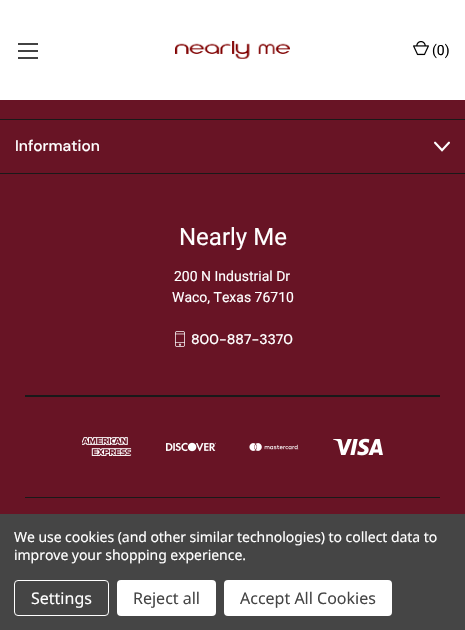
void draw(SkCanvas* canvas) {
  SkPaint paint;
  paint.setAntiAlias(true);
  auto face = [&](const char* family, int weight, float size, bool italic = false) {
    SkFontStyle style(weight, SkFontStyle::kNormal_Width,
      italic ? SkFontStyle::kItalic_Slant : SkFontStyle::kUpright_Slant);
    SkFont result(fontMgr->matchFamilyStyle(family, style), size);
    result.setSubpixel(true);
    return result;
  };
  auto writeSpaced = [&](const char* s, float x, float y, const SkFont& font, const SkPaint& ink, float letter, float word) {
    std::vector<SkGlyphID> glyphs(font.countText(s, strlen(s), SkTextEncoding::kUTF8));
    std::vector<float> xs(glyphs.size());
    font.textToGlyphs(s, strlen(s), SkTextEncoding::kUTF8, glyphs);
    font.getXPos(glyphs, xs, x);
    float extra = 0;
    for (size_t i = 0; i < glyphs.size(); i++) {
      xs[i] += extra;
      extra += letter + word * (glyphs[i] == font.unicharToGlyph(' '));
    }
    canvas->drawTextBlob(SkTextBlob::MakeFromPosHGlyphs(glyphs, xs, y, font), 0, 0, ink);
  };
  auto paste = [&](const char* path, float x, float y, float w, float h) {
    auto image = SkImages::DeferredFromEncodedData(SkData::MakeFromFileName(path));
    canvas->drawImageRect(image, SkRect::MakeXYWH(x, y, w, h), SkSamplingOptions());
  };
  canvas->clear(0xff681425);
  {
    const struct { float x, y, w, h; SkColor color; } items[] = {
      {0, 0, 465, 100, 0xffffffff},
      {18, 50, 20, 2, 0xff424242},
      {18, 43, 20, 2, 0xff424242},
      {18, 57, 20, 2, 0xff424242},
    };
    for (auto [x, y, w, h, color] : items) {
      paint.setColor(color);
      canvas->drawRect(SkRect::MakeXYWH(x, y, w, h), paint);
    }
  }
  paste("img/1.png", 175, 41, 115, 18);
  paste("img/2.png", 413, 41, 16, 15);
  paint.setColor(0xff191919);
  canvas->drawRect(SkRect::MakeXYWH(0, 119, 465, 1), paint);
  canvas->drawRect(SkRect::MakeXYWH(0, 173, 465, 1), paint);
  paste("img/3.png", 434, 141, 16, 11);
  paste("img/4.png", 175, 331, 10, 16);
  canvas->drawRect(SkRect::MakeXYWH(25, 395, 415, 2), paint);
  canvas->drawRect(SkRect::MakeXYWH(25, 497, 415, 1), paint);
  paste("img/5.png", 82, 437, 50, 19);
  paste("img/6.png", 166, 442, 50, 10);
  paste("img/7.png", 249, 443, 50, 8);
  paste("img/8.png", 333, 438, 50, 18);
  paint.setColor(0xff454545);
  canvas->drawRect(SkRect::MakeXYWH(0, 514, 465, 116), paint);
  paint.setStroke(true);
  paint.setStrokeWidth(1);
  paint.setColor(0xffffffff);
  canvas->drawRoundRect(SkRect::MakeXYWH(14.5f, 580.5f, 94, 35), 3.5f, 3.5f, paint);
  paint.setStroke(false);
  canvas->drawRoundRect(SkRect::MakeXYWH(117, 580, 99, 36), 4, 4, paint);
  canvas->drawRoundRect(SkRect::MakeXYWH(224, 580, 168, 36), 4, 4, paint);
  auto f0 = face("Roboto", 400, 14);
  paint.setColor(0xff000000);
  canvas->drawString("(0)", 432, 55, f0, paint);
  auto f1 = face("DM Sans", 500, 15.5f);
  paint.setColor(0xffffffff);
  canvas->drawString("Information", 15, 151, f1, paint);
  auto f2 = face("Roboto", 400, 24);
  canvas->drawString("Nearly Me", 179, 245, f2, paint);
  canvas->drawString("200 N Industrial Dr", 174, 281, f0, paint);
  canvas->drawString("Waco, Texas 76710", 172, 302, f0, paint);
  auto f3 = face("DM Sans", 500, 14);
  canvas->drawString("800-887-3370", 191, 344, f3, paint);
  auto f4 = face("Noto Sans", 400, 14);
  writeSpaced("We use cookies (and other similar technologies) to collect data to", 14, 542, f4, paint, -0.05f, 0);
  writeSpaced("improve your shopping experience.", 14, 560, f4, paint, -0.05f, 0);
  auto f5 = face("Noto Sans", 400, 16);
  canvas->drawString("Settings", 31, 604, f5, paint);
  paint.setColor(0xff454545);
  canvas->drawString("Reject all", 133, 604, f5, paint);
  canvas->drawString("Accept All Cookies", 240, 604, f5, paint);
}
